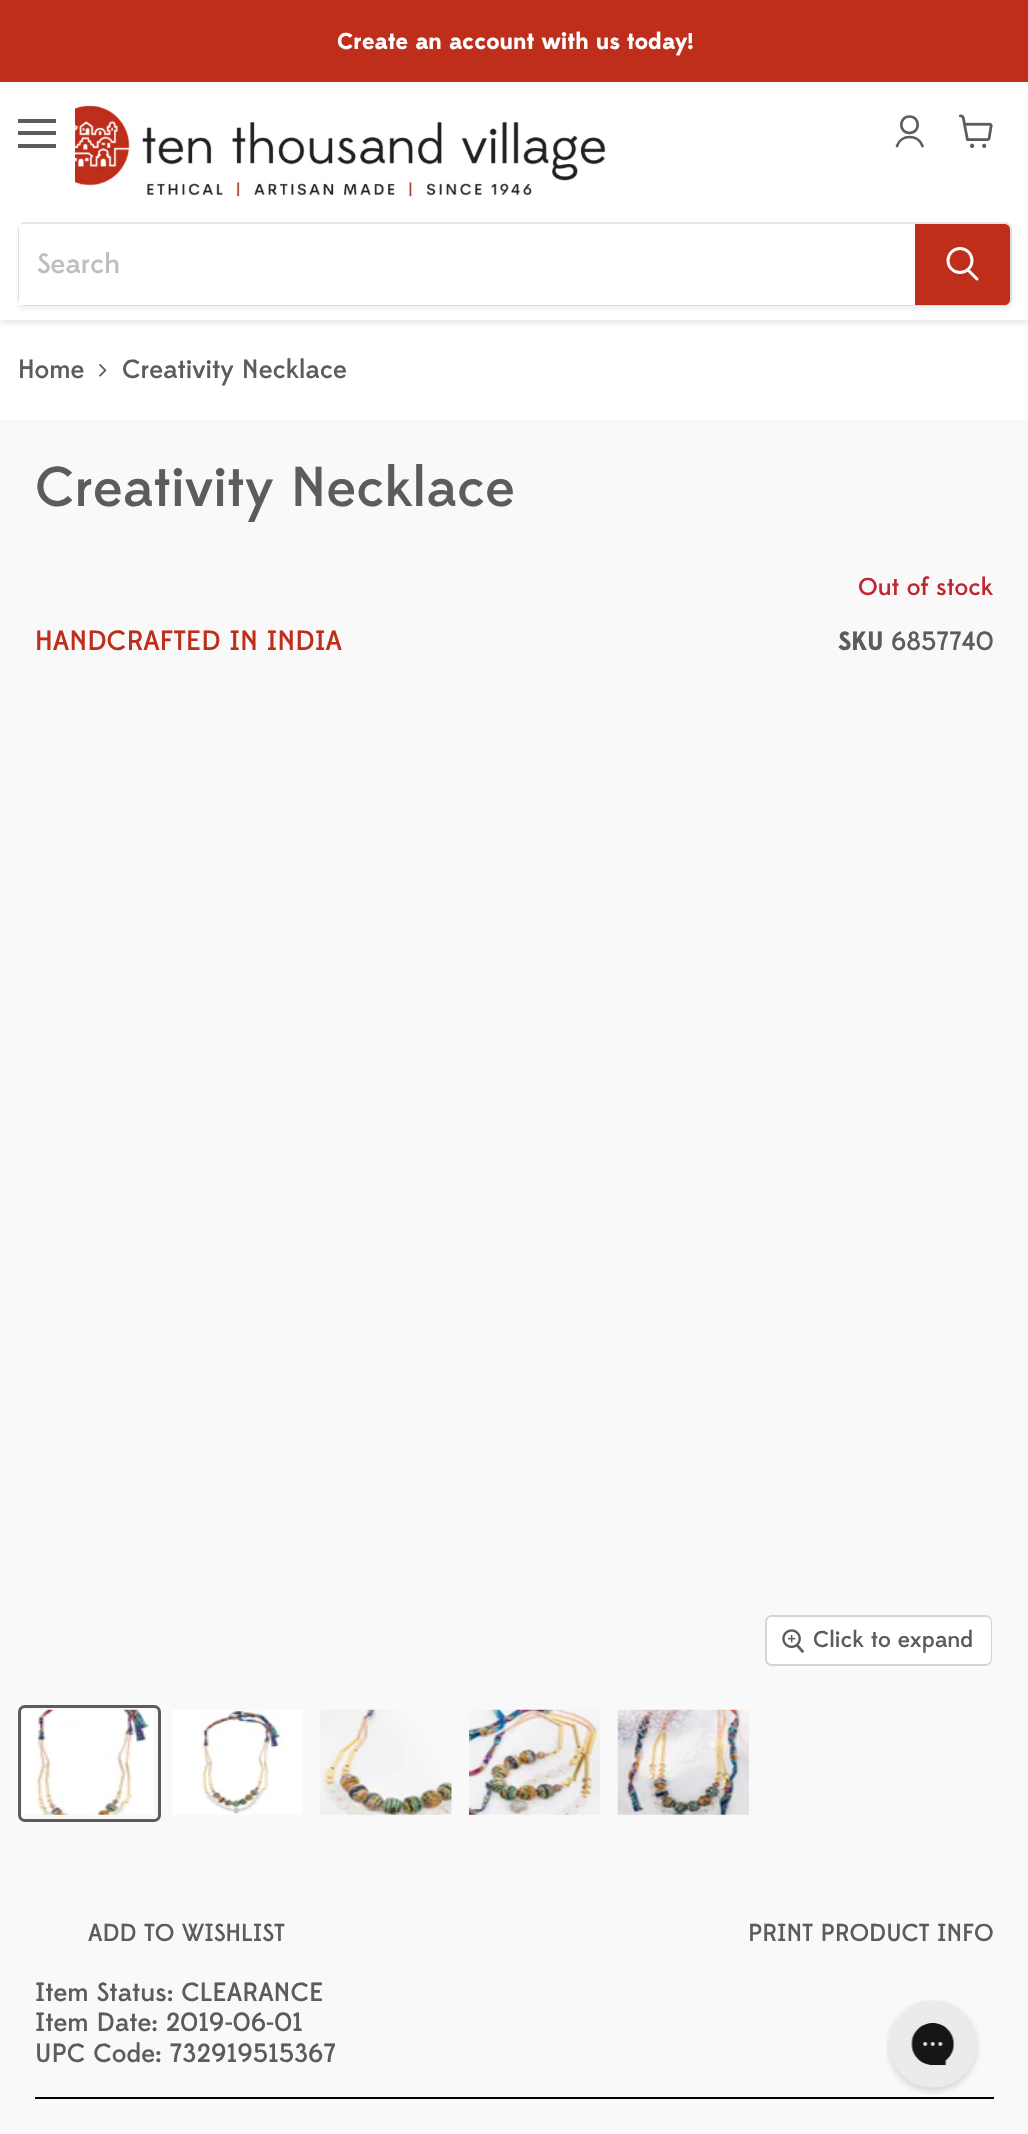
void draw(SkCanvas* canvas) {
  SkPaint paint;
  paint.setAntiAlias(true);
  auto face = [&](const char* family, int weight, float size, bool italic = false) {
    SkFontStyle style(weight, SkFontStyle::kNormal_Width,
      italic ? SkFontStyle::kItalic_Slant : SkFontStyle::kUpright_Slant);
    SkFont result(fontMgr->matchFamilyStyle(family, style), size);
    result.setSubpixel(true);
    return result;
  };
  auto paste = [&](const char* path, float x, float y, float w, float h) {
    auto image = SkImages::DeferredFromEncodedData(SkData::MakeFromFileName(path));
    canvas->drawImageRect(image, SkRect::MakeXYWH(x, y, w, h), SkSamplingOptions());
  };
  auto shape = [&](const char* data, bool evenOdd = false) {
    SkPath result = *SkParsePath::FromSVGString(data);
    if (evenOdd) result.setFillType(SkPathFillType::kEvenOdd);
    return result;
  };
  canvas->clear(0xffffffff);
  paint.setColor(0xffbf2e1a);
  canvas->drawRect(SkRect::MakeXYWH(0, 0, 1028, 82), paint);
  paint.setColor(0x40808080);
  paint.setMaskFilter(SkMaskFilter::MakeBlur(kNormal_SkBlurStyle, 3.5f));
  canvas->drawRect(SkRect::MakeXYWH(0, 84, 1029, 238), paint);
  paint.setMaskFilter(nullptr);
  paint.setColor(0xffffffff);
  canvas->drawRect(SkRect::MakeXYWH(0, 82, 1028, 238), paint);
  paint.setStroke(true);
  paint.setStrokeWidth(2.7f);
  paint.setStrokeCap(SkPaint::kRound_Cap);
  paint.setStrokeJoin(SkPaint::kRound_Join);
  paint.setColor(0xff5c5c5c);
  canvas->drawPath(shape("M909.5 133C920.5 133 920.5 116.5 909.5 116.5C898.5 116.5 898.5 133 909.5 133ZM922.5 146C918 134 901 134 897 146"), paint);
  paste("img/1.png", 959, 114, 34, 34);
  paint.setStroke(false);
  {
    const struct { float x, y, w, h; SkColor color; } items[] = {
      {18, 119, 38, 4, 0xff5c5c5c},
      {18, 131, 38, 4, 0xff5c5c5c},
      {18, 144, 38, 4, 0xff5c5c5c},
    };
    for (auto [x, y, w, h, color] : items) {
      paint.setColor(color);
      canvas->drawRect(SkRect::MakeXYWH(x, y, w, h), paint);
    }
  }
  paste("img/2.png", 75, 105, 531, 92);
  paint.setColor(0x1c808080);
  paint.setMaskFilter(SkMaskFilter::MakeBlur(kNormal_SkBlurStyle, 2.5f));
  canvas->drawRoundRect(SkRect::MakeXYWH(18, 226, 994, 84), 7, 7, paint);
  paint.setMaskFilter(nullptr);
  paint.setStroke(true);
  paint.setStrokeWidth(2);
  paint.setStrokeCap(SkPaint::kButt_Cap);
  paint.setStrokeJoin(SkPaint::kMiter_Join);
  paint.setColor(0x33808080);
  canvas->drawRoundRect(SkRect::MakeXYWH(19, 223, 992, 82), 6, 6, paint);
  paint.setStroke(false);
  paint.setColor(0xffffffff);
  canvas->drawRect(SkRect::MakeXYWH(19, 224, 896, 81), paint);
  paint.setColor(0xffbf2e1a);
  canvas->drawPath(shape("M916 225H1005C1007 225 1009 227 1009 229V300C1009 302 1007 304 1005 304H916Z"), paint);
  paint.setStroke(true);
  canvas->drawPath(shape("M916 225H1005C1007 225 1009 227 1009 229V300C1009 302 1007 304 1005 304H916Z"), paint);
  paint.setStrokeWidth(3);
  paint.setStrokeCap(SkPaint::kRound_Cap);
  paint.setColor(0xffffffff);
  canvas->drawPath(shape("M977 279L968.5 270.5"), paint);
  paint.setStrokeCap(SkPaint::kButt_Cap);
  canvas->drawCircle(960, 260.5f, 12, paint);
  paste("img/3.png", 99, 364, 8, 13);
  paint.setStroke(false);
  paint.setColor(0xfff9f9f9);
  canvas->drawRect(SkRect::MakeXYWH(0, 420, 1028, 1409), paint);
  paint.setStroke(true);
  paint.setStrokeWidth(2);
  paint.setColor(0xffd4d4d4);
  canvas->drawRoundRect(SkRect::MakeXYWH(766, 1616, 225, 49), 6, 6, paint);
  paint.setStroke(false);
  paint.setColor(0xe6ffffff);
  canvas->drawRoundRect(SkRect::MakeXYWH(767, 1617, 224, 47), 5, 5, paint);
  paste("img/4.png", 782, 1629, 23, 25);
  paint.setStroke(true);
  paint.setStrokeWidth(3);
  paint.setColor(0xff5c5c5c);
  canvas->drawRoundRect(SkRect::MakeXYWH(19.5f, 1706.5f, 140, 114), 5.5f, 5.5f, paint);
  paste("img/5.png", 23, 1709, 131, 106);
  paste("img/6.png", 172, 1710, 131, 105);
  paste("img/7.png", 320, 1709, 132, 106);
  paste("img/8.png", 469, 1709, 131, 106);
  paste("img/9.png", 617, 1709, 132, 106);
  paint.setStroke(false);
  paint.setColor(0xfff9f9f9);
  canvas->drawRect(SkRect::MakeXYWH(0, 1829, 1028, 305), paint);
  paint.setColor(0xff000000);
  canvas->drawRect(SkRect::MakeXYWH(35, 2097, 959, 2), paint);
  paste("img/10.png", 886, 2000, 94, 95);
  auto f0 = face("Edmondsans", 700, 23);
  paint.setColor(0xffffffff);
  canvas->drawString("Create an account with us today!", 337, 49, f0, paint);
  auto f1 = face("Edmondsans", 500, 28);
  paint.setColor(0xffbebebe);
  canvas->drawString("Search", 37, 273, f1, paint);
  auto f2 = face("Edmondsans", 500, 26.25f);
  paint.setColor(0xff5c5c5c);
  canvas->drawString("Home", 18, 378, f2, paint);
  canvas->drawString("Creativity Necklace", 122, 378, f2, paint);
  auto f3 = face("Edmondsans", 500, 56);
  canvas->drawString("Creativity Necklace", 35, 506, f3, paint);
  paint.setColor(0xffbf2e1a);
  canvas->drawString("HANDCRAFTED IN INDIA", 35, 650, f1, paint);
  auto f4 = face("Edmondsans", 500, 24.5f);
  paint.setColor(0xffbf262f);
  canvas->drawString("Out of stock", 858, 595, f4, paint);
  auto f5 = face("Edmondsans", 700, 26.25f);
  paint.setColor(0xff5c5c5c);
  canvas->drawString("SKU", 838, 650, f5, paint);
  canvas->drawString("6857740", 891, 650, f2, paint);
  auto f6 = face("Edmondsans", 500, 23);
  canvas->drawString("Click to expand", 813, 1647, f6, paint);
  canvas->drawString("ADD TO WISHLIST", 88, 1941, f4, paint);
  canvas->drawString("PRINT PRODUCT INFO", 748, 1941, f4, paint);
  {
    const struct { const char* s; float x, y; } items[] = {
      {"Item Status: CLEARANCE", 35, 2001},
      {"Item Date: 2019-06-01", 35, 2031},
      {"UPC Code: 732919515367", 35, 2062},
    };
    for (auto [s, x, y] : items) {
      canvas->drawString(s, x, y, f2, paint);
    }
  }
}
